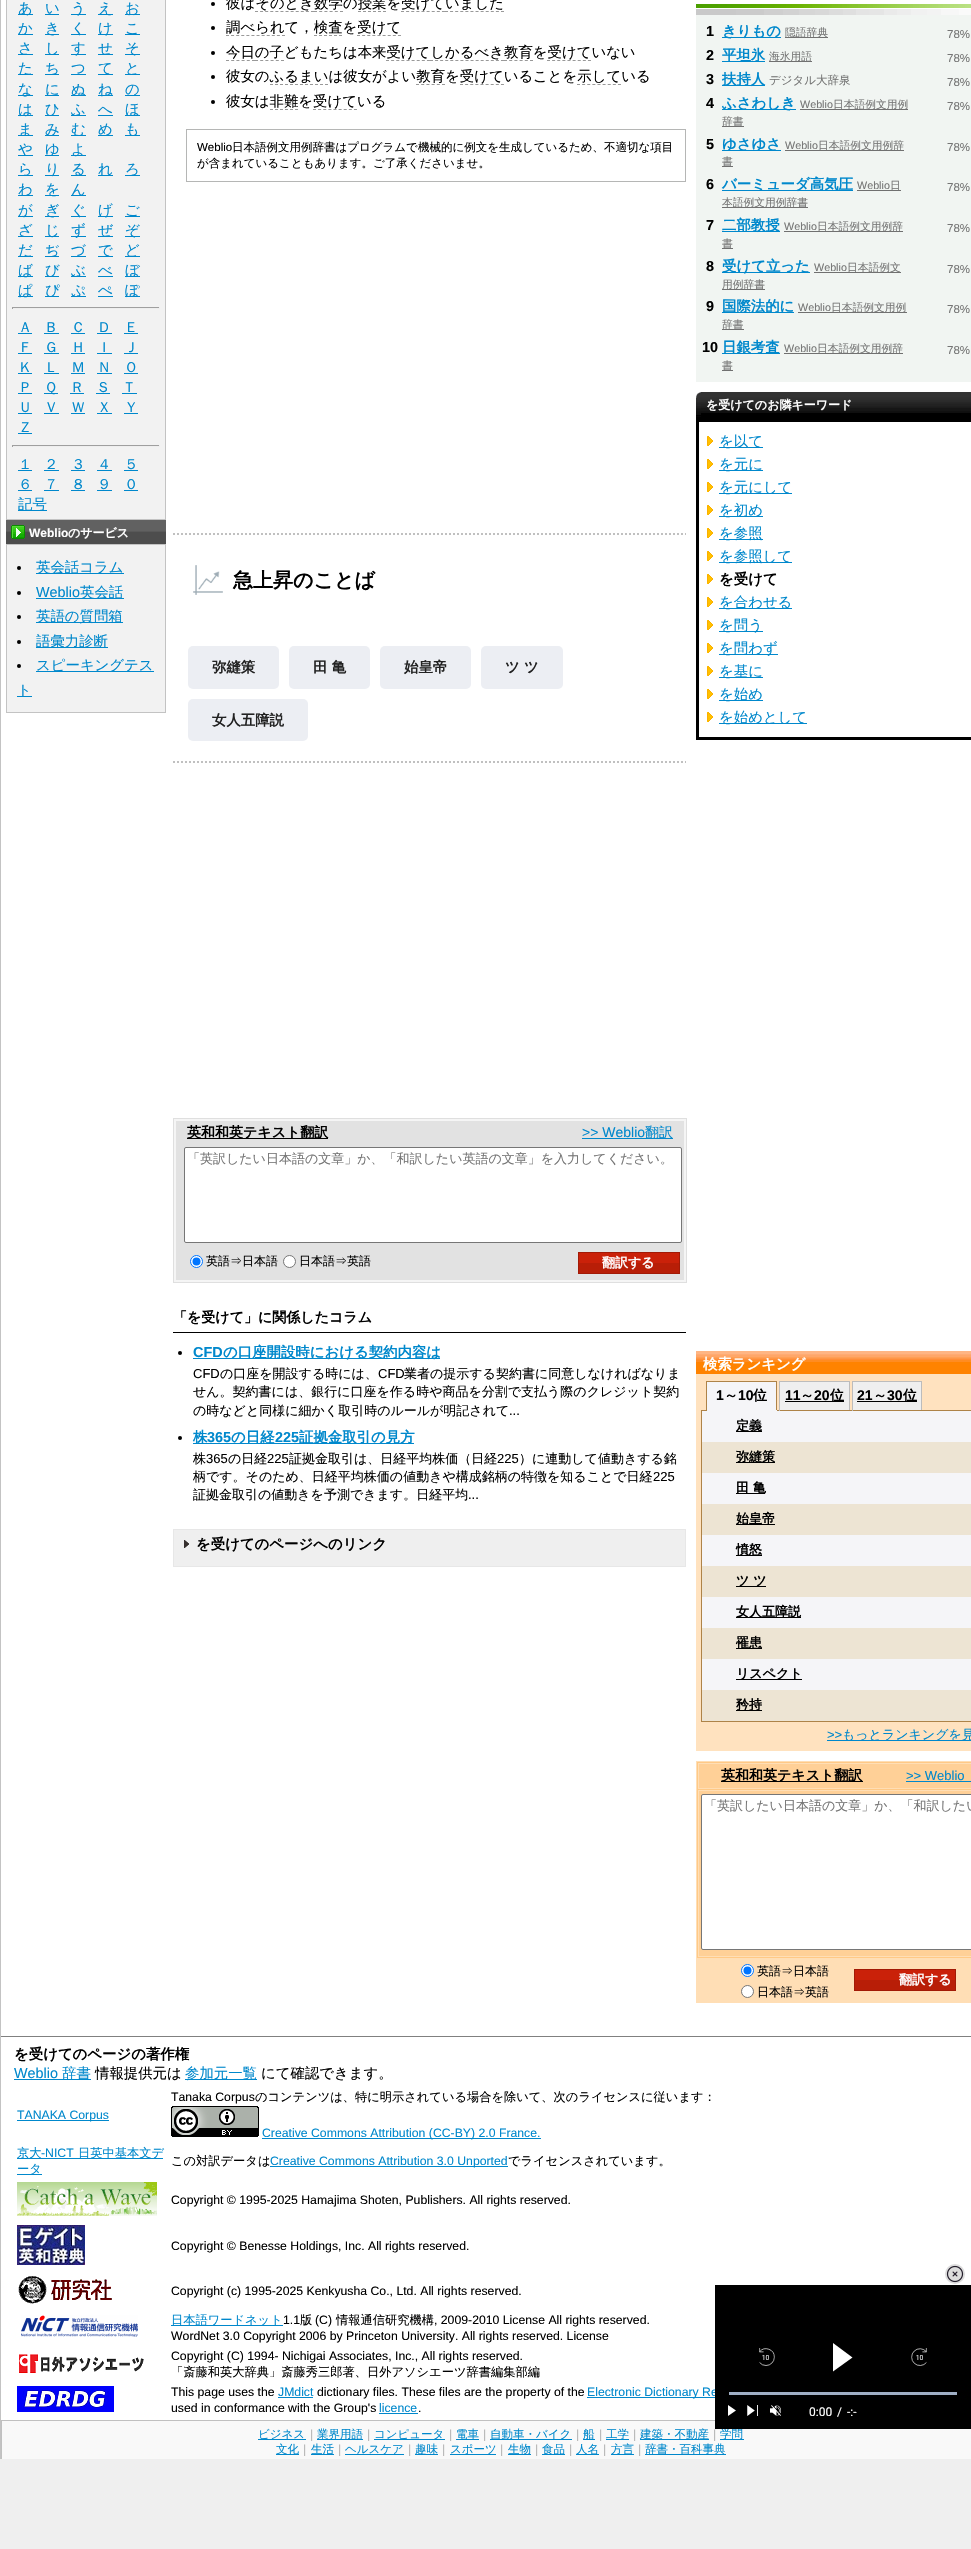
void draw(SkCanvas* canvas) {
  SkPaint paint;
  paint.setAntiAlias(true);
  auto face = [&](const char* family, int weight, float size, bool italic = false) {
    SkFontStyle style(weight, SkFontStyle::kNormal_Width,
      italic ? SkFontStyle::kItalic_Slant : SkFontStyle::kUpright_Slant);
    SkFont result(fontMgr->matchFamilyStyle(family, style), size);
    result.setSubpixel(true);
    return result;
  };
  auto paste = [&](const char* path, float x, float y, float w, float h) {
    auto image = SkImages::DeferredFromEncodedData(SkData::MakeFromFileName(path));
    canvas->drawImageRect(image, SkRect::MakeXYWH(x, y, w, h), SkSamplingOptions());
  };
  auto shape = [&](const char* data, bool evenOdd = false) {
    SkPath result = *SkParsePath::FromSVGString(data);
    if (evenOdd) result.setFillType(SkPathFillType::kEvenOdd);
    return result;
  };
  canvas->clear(0xffffffff);
  paint.setColor(0xffc3c3c3);
  canvas->drawRect(SkRect::MakeXYWH(0, 0, 1, 2459), paint);
  paint.setColor(0xfff2f2f2);
  canvas->drawRect(SkRect::MakeXYWH(6.5f, -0.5f, 159, 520), paint);
  paint.setStroke(true);
  paint.setStrokeWidth(1);
  paint.setColor(0xffc3c3c3);
  canvas->drawRect(SkRect::MakeXYWH(6.5f, -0.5f, 159, 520), paint);
  paint.setStroke(false);
  {
    const struct { float x, y, w, h; SkColor color; } items[] = {
      {18, 14, 15, 1, 0xff0088cc},
      {45, 14, 14, 1, 0xff0088cc},
      {71, 14, 15, 1, 0xff0088cc},
      {98, 14, 15, 1, 0xff0088cc},
      {125, 14, 15, 1, 0xff0088cc},
      {18, 34, 15, 1, 0xff0088cc},
      {45, 34, 14, 1, 0xff0088cc},
      {71, 34, 15, 1, 0xff0088cc},
      {98, 34, 15, 1, 0xff0088cc},
      {125, 34, 15, 1, 0xff0088cc},
      {18, 54, 15, 1, 0xff0088cc},
      {45, 54, 14, 1, 0xff0088cc},
      {71, 54, 15, 1, 0xff0088cc},
      {98, 54, 15, 1, 0xff0088cc},
      {125, 54, 15, 1, 0xff0088cc},
      {18, 74, 15, 1, 0xff0088cc},
      {45, 74, 14, 1, 0xff0088cc},
      {71, 74, 15, 1, 0xff0088cc},
      {98, 74, 15, 1, 0xff0088cc},
      {125, 74, 15, 1, 0xff0088cc},
      {18, 95, 15, 1, 0xff0088cc},
      {45, 95, 14, 1, 0xff0088cc},
      {71, 95, 15, 1, 0xff0088cc},
      {98, 95, 15, 1, 0xff0088cc},
      {125, 95, 15, 1, 0xff0088cc},
      {18, 115, 15, 1, 0xff0088cc},
      {45, 115, 14, 1, 0xff0088cc},
      {71, 115, 15, 1, 0xff0088cc},
      {98, 115, 15, 1, 0xff0088cc},
      {125, 115, 15, 1, 0xff0088cc},
      {18, 135, 15, 1, 0xff0088cc},
      {45, 135, 14, 1, 0xff0088cc},
      {71, 135, 15, 1, 0xff0088cc},
      {98, 135, 15, 1, 0xff0088cc},
      {125, 135, 15, 1, 0xff0088cc},
      {18, 155, 15, 1, 0xff0088cc},
      {45, 155, 14, 1, 0xff0088cc},
      {71, 155, 15, 1, 0xff0088cc},
      {18, 175, 15, 1, 0xff0088cc},
      {45, 175, 14, 1, 0xff0088cc},
      {71, 175, 15, 1, 0xff0088cc},
      {98, 175, 15, 1, 0xff0088cc},
      {125, 175, 15, 1, 0xff0088cc},
      {18, 195, 15, 1, 0xff0088cc},
      {45, 195, 14, 1, 0xff0088cc},
      {71, 195, 15, 1, 0xff0088cc},
      {18, 216, 15, 1, 0xff0088cc},
      {45, 216, 14, 1, 0xff0088cc},
      {71, 216, 15, 1, 0xff0088cc},
      {98, 216, 15, 1, 0xff0088cc},
      {125, 216, 15, 1, 0xff0088cc},
      {18, 236, 15, 1, 0xff0088cc},
      {45, 236, 14, 1, 0xff0088cc},
      {71, 236, 15, 1, 0xff0088cc},
      {98, 236, 15, 1, 0xff0088cc},
      {125, 236, 15, 1, 0xff0088cc},
      {18, 256, 15, 1, 0xff0088cc},
      {45, 256, 14, 1, 0xff0088cc},
      {71, 256, 15, 1, 0xff0088cc},
      {98, 256, 15, 1, 0xff0088cc},
      {125, 256, 15, 1, 0xff0088cc},
      {18, 276, 15, 1, 0xff0088cc},
      {45, 276, 14, 1, 0xff0088cc},
      {71, 276, 15, 1, 0xff0088cc},
      {98, 276, 15, 1, 0xff0088cc},
      {125, 276, 15, 1, 0xff0088cc},
      {18, 296, 15, 1, 0xff0088cc},
      {45, 296, 14, 1, 0xff0088cc},
      {71, 296, 15, 1, 0xff0088cc},
      {98, 296, 15, 1, 0xff0088cc},
      {125, 296, 15, 1, 0xff0088cc},
      {12, 307, 148, 1, 0xff9f9f9f},
      {159, 307, 1, 2, 0xffeeeeee},
      {12, 308, 148, 1, 0xffeeeeee},
      {12, 307, 1, 2, 0xff9f9f9f},
      {18, 333, 14, 1, 0xff0088cc},
      {44, 333, 15, 1, 0xff0088cc},
      {71, 333, 14, 1, 0xff0088cc},
      {97, 333, 15, 1, 0xff0088cc},
      {124, 333, 14, 1, 0xff0088cc},
      {18, 353, 14, 1, 0xff0088cc},
      {44, 353, 15, 1, 0xff0088cc},
      {71, 353, 14, 1, 0xff0088cc},
      {97, 353, 15, 1, 0xff0088cc},
      {124, 353, 14, 1, 0xff0088cc},
      {18, 373, 14, 1, 0xff0088cc},
      {44, 373, 15, 1, 0xff0088cc},
      {71, 373, 14, 1, 0xff0088cc},
      {97, 373, 15, 1, 0xff0088cc},
      {124, 373, 14, 1, 0xff0088cc},
      {18, 393, 14, 1, 0xff0088cc},
      {44, 393, 14, 1, 0xff0088cc},
      {70, 393, 14, 1, 0xff0088cc},
      {96, 393, 14, 1, 0xff0088cc},
      {122, 393, 15, 1, 0xff0088cc},
      {18, 413, 14, 1, 0xff0088cc},
      {44, 413, 15, 1, 0xff0088cc},
      {71, 413, 14, 1, 0xff0088cc},
      {97, 413, 15, 1, 0xff0088cc},
      {124, 413, 14, 1, 0xff0088cc},
      {18, 433, 14, 1, 0xff0088cc},
      {12, 445, 148, 1, 0xff9f9f9f},
      {159, 445, 1, 2, 0xffeeeeee},
      {12, 446, 148, 1, 0xffeeeeee},
      {12, 445, 1, 2, 0xff9f9f9f},
      {18, 470, 14, 1, 0xff0088cc},
      {44, 470, 15, 1, 0xff0088cc},
      {71, 470, 14, 1, 0xff0088cc},
      {97, 470, 15, 1, 0xff0088cc},
      {124, 470, 14, 1, 0xff0088cc},
      {18, 490, 14, 1, 0xff0088cc},
      {44, 490, 15, 1, 0xff0088cc},
      {71, 490, 14, 1, 0xff0088cc},
      {97, 490, 15, 1, 0xff0088cc},
      {124, 490, 14, 1, 0xff0088cc},
      {18, 510, 29, 1, 0xff0088cc},
    };
    for (auto [x, y, w, h, color] : items) {
      paint.setColor(color);
      canvas->drawRect(SkRect::MakeXYWH(x, y, w, h), paint);
    }
  }
  paste("img/1.png", 6, 520, 160, 24);
  paste("img/2.png", 11, 525, 14, 14);
  paint.setColor(0xfff2f2f2);
  canvas->drawRect(SkRect::MakeXYWH(6.5f, 544.5f, 159, 168), paint);
  paint.setStroke(true);
  paint.setColor(0xffc3c3c3);
  canvas->drawRect(SkRect::MakeXYWH(6.5f, 544.5f, 159, 168), paint);
  paint.setStroke(false);
  paint.setColor(0xff000000);
  canvas->drawCircle(19, 568, 2, paint);
  paint.setColor(0xff0088cc);
  canvas->drawRect(SkRect::MakeXYWH(36, 573, 88, 1), paint);
  paint.setColor(0xff000000);
  canvas->drawCircle(19, 593, 2, paint);
  paint.setColor(0xff0088cc);
  canvas->drawRect(SkRect::MakeXYWH(36, 598, 88, 1), paint);
  paint.setColor(0xff000000);
  canvas->drawCircle(19, 617, 2, paint);
  paint.setColor(0xff0088cc);
  canvas->drawRect(SkRect::MakeXYWH(36, 622, 87, 1), paint);
  paint.setColor(0xff000000);
  canvas->drawCircle(19, 642, 2, paint);
  paint.setColor(0xff0088cc);
  canvas->drawRect(SkRect::MakeXYWH(36, 647, 72, 1), paint);
  paint.setColor(0xff000000);
  canvas->drawCircle(19, 666, 2, paint);
  paint.setColor(0xff0088cc);
  canvas->drawRect(SkRect::MakeXYWH(36, 671, 118, 1), paint);
  canvas->drawRect(SkRect::MakeXYWH(17, 696, 15, 1), paint);
  paint.setColor(0xff000000);
  canvas->drawCircle(213, 4, 2, paint);
  paint.setStroke(true);
  paint.setColor(0xff999999);
  paint.setPathEffect(SkDashPathEffect::Make({{3, 2.09f}}, 0));
  canvas->drawPath(shape("M255 11.5H314"), paint);
  paint.setPathEffect(nullptr);
  paint.setPathEffect(SkDashPathEffect::Make({{3, 2.2f}}, 0));
  canvas->drawPath(shape("M314 11.5H343"), paint);
  paint.setPathEffect(nullptr);
  paint.setPathEffect(SkDashPathEffect::Make({{3, 2}}, 0));
  canvas->drawPath(shape("M358 11.5H386"), paint);
  paint.setPathEffect(nullptr);
  paint.setPathEffect(SkDashPathEffect::Make({{3, 2.12f}}, 0));
  canvas->drawPath(shape("M401 11.5H445"), paint);
  paint.setPathEffect(nullptr);
  paint.setPathEffect(SkDashPathEffect::Make({{3, 2.09f}}, 0));
  canvas->drawPath(shape("M445 11.5H504"), paint);
  paint.setPathEffect(nullptr);
  paint.setStroke(false);
  paint.setColor(0xff000000);
  canvas->drawCircle(213, 28, 2, paint);
  paint.setStroke(true);
  paint.setColor(0xff999999);
  paint.setPathEffect(SkDashPathEffect::Make({{3, 2.09f}}, 0));
  canvas->drawPath(shape("M226 35.5H285"), paint);
  paint.setPathEffect(nullptr);
  paint.setPathEffect(SkDashPathEffect::Make({{3, 2}}, 0));
  canvas->drawPath(shape("M314 35.5H342"), paint);
  paint.setPathEffect(nullptr);
  paint.setPathEffect(SkDashPathEffect::Make({{3, 2.12f}}, 0));
  canvas->drawPath(shape("M357 35.5H401"), paint);
  paint.setPathEffect(nullptr);
  paint.setStroke(false);
  paint.setColor(0xff000000);
  canvas->drawCircle(213, 53, 2, paint);
  paint.setStroke(true);
  paint.setColor(0xff999999);
  paint.setPathEffect(SkDashPathEffect::Make({{3, 2.2f}}, 0));
  canvas->drawPath(shape("M226 60.5H255"), paint);
  paint.setPathEffect(nullptr);
  paint.setPathEffect(SkDashPathEffect::Make({{3, 2.2f}}, 0));
  canvas->drawPath(shape("M255 60.5H284"), paint);
  paint.setPathEffect(nullptr);
  paint.setPathEffect(SkDashPathEffect::Make({{3, 2.12f}}, 0));
  canvas->drawPath(shape("M386 60.5H430"), paint);
  paint.setPathEffect(nullptr);
  paint.setPathEffect(SkDashPathEffect::Make({{3, 2.07f}}, 0));
  canvas->drawPath(shape("M430 60.5H504"), paint);
  paint.setPathEffect(nullptr);
  paint.setPathEffect(SkDashPathEffect::Make({{3, 2.2f}}, 0));
  canvas->drawPath(shape("M504 60.5H533"), paint);
  paint.setPathEffect(nullptr);
  paint.setPathEffect(SkDashPathEffect::Make({{3, 2.12f}}, 0));
  canvas->drawPath(shape("M547 60.5H591"), paint);
  paint.setPathEffect(nullptr);
  paint.setStroke(false);
  paint.setColor(0xff000000);
  canvas->drawCircle(213, 77, 2, paint);
  paint.setStroke(true);
  paint.setColor(0xff999999);
  paint.setPathEffect(SkDashPathEffect::Make({{3, 2}}, 0));
  canvas->drawPath(shape("M270 84.5H328"), paint);
  paint.setPathEffect(nullptr);
  paint.setPathEffect(SkDashPathEffect::Make({{3, 2.2f}}, 0));
  canvas->drawPath(shape("M416 84.5H445"), paint);
  paint.setPathEffect(nullptr);
  paint.setPathEffect(SkDashPathEffect::Make({{3, 2.12f}}, 0));
  canvas->drawPath(shape("M460 84.5H504"), paint);
  paint.setPathEffect(nullptr);
  paint.setPathEffect(SkDashPathEffect::Make({{3, 2.12f}}, 0));
  canvas->drawPath(shape("M577 84.5H621"), paint);
  paint.setPathEffect(nullptr);
  paint.setStroke(false);
  paint.setColor(0xff000000);
  canvas->drawCircle(213, 102, 2, paint);
  paint.setStroke(true);
  paint.setColor(0xff999999);
  paint.setPathEffect(SkDashPathEffect::Make({{3, 2}}, 0));
  canvas->drawPath(shape("M270 109.5H298"), paint);
  paint.setPathEffect(nullptr);
  paint.setPathEffect(SkDashPathEffect::Make({{3, 2.12f}}, 0));
  canvas->drawPath(shape("M313 109.5H357"), paint);
  paint.setPathEffect(nullptr);
  paint.setColor(0xffb5b6b5);
  canvas->drawRect(SkRect::MakeXYWH(186.5f, 129.5f, 499, 52), paint);
  paint.setStrokeWidth(2);
  paint.setColor(0xffc0c0c0);
  paint.setPathEffect(SkDashPathEffect::Make({{2, 2}}, 0));
  canvas->drawPath(shape("M173 534H686"), paint);
  paint.setPathEffect(nullptr);
  paste("img/3.png", 193, 565, 30, 30);
  paint.setStroke(false);
  paint.setColor(0xffeceef3);
  canvas->drawRoundRect(SkRect::MakeXYWH(188, 646, 91, 43), 5, 5, paint);
  canvas->drawRoundRect(SkRect::MakeXYWH(289, 646, 81, 43), 5, 5, paint);
  canvas->drawRoundRect(SkRect::MakeXYWH(380, 646, 91, 43), 5, 5, paint);
  canvas->drawRoundRect(SkRect::MakeXYWH(481, 646, 82, 43), 5, 5, paint);
  canvas->drawRoundRect(SkRect::MakeXYWH(188, 699, 120, 42), 5, 5, paint);
  paint.setStroke(true);
  paint.setColor(0xffc0c0c0);
  paint.setPathEffect(SkDashPathEffect::Make({{2, 2}}, 0));
  canvas->drawPath(shape("M173 762H686"), paint);
  paint.setPathEffect(nullptr);
  paint.setStroke(false);
  paint.setColor(0xfff5f5f5);
  canvas->drawRect(SkRect::MakeXYWH(173.5f, 1118.5f, 513, 164), paint);
  paint.setStroke(true);
  paint.setStrokeWidth(1);
  paint.setColor(0xffdfdfdf);
  canvas->drawRect(SkRect::MakeXYWH(173.5f, 1118.5f, 513, 164), paint);
  paint.setStroke(false);
  {
    const struct { float x, y, w, h; SkColor color; } items[] = {
      {176, 1121, 508, 159, 0xffe2e2e2},
      {187, 1138, 141, 1, 0xff000000},
      {582, 1138, 91, 1, 0xff0088cc},
    };
    for (auto [x, y, w, h, color] : items) {
      paint.setColor(color);
      canvas->drawRect(SkRect::MakeXYWH(x, y, w, h), paint);
    }
  }
  paint.setColor(0xffffffff);
  canvas->drawRoundRect(SkRect::MakeXYWH(184.5f, 1147.5f, 497, 95), 1.5f, 1.5f, paint);
  paint.setStroke(true);
  paint.setColor(0xff767676);
  canvas->drawRoundRect(SkRect::MakeXYWH(184.5f, 1147.5f, 497, 95), 1.5f, 1.5f, paint);
  paint.setStroke(false);
  paint.setColor(0xffffffff);
  canvas->drawCircle(196.5f, 1261.5f, 6, paint);
  paint.setStroke(true);
  paint.setColor(0xff0075ff);
  canvas->drawCircle(196.5f, 1261.5f, 6, paint);
  paint.setStroke(false);
  canvas->drawCircle(196.5f, 1261.5f, 4, paint);
  paint.setColor(0xffffffff);
  canvas->drawCircle(289.5f, 1261.5f, 6, paint);
  paint.setStroke(true);
  paint.setColor(0xff767676);
  canvas->drawCircle(289.5f, 1261.5f, 6, paint);
  paint.setColor(0xffa21a06);
  canvas->drawRect(SkRect::MakeXYWH(578.5f, 1252.5f, 101, 21), paint);
  paint.setStroke(false);
  {
    const struct { float x, y, w, h; SkColor color; } items[] = {
      {579, 1253, 100, 10, 0xffca2109},
      {579, 1263, 100, 10, 0xffb81e07},
      {173, 1332, 513, 1, 0xff000000},
    };
    for (auto [x, y, w, h, color] : items) {
      paint.setColor(color);
      canvas->drawRect(SkRect::MakeXYWH(x, y, w, h), paint);
    }
  }
  canvas->drawCircle(180, 1353, 2, paint);
  paint.setColor(0xff0088cc);
  canvas->drawRect(SkRect::MakeXYWH(193, 1358, 247, 1), paint);
  paint.setColor(0xff000000);
  canvas->drawCircle(180, 1438, 2, paint);
  paint.setColor(0xff0088cc);
  canvas->drawRect(SkRect::MakeXYWH(193, 1443, 221, 1), paint);
  paint.setColor(0xffefefef);
  canvas->drawRect(SkRect::MakeXYWH(173.5f, 1529.5f, 512, 37), paint);
  paint.setStroke(true);
  paint.setColor(0xffe7e7e7);
  canvas->drawRect(SkRect::MakeXYWH(173.5f, 1529.5f, 512, 37), paint);
  paste("img/4.png", 184, 1540, 5, 8);
  paint.setStroke(false);
  paint.setColor(0xffdddddd);
  canvas->drawCircle(955, 2274, 10, paint);
  paste("img/5.png", 946, 2265, 18, 18);
  paste("img/10.png", 696, 4, 275, 11);
  {
    const struct { float x, y, w, h; SkColor color; } items[] = {
      {696, 15, 275, 367, 0xfff1f5f2},
      {722, 37, 59, 1, 0xff0088cc},
      {785, 37, 43, 1, 0xff707070},
      {722, 61, 43, 1, 0xff0088cc},
      {769, 61, 43, 1, 0xff707070},
      {722, 85, 43, 1, 0xff0088cc},
      {722, 109, 74, 1, 0xff0088cc},
      {800, 109, 108, 1, 0xff707070},
      {722, 126, 22, 1, 0xff707070},
      {722, 150, 59, 1, 0xff0088cc},
      {785, 150, 119, 1, 0xff707070},
      {722, 166, 11, 1, 0xff707070},
      {722, 190, 131, 1, 0xff0088cc},
      {857, 190, 44, 1, 0xff707070},
      {722, 207, 86, 1, 0xff707070},
      {722, 231, 58, 1, 0xff0088cc},
      {784, 231, 119, 1, 0xff707070},
      {722, 248, 11, 1, 0xff707070},
      {722, 272, 88, 1, 0xff0088cc},
      {814, 272, 87, 1, 0xff707070},
      {722, 289, 43, 1, 0xff707070},
      {722, 312, 72, 1, 0xff0088cc},
      {798, 312, 109, 1, 0xff707070},
      {722, 329, 22, 1, 0xff707070},
      {722, 353, 58, 1, 0xff0088cc},
      {784, 353, 119, 1, 0xff707070},
      {722, 370, 11, 1, 0xff707070},
      {696, 413, 275, 6, 0xff000000},
    };
    for (auto [x, y, w, h, color] : items) {
      paint.setColor(color);
      canvas->drawRect(SkRect::MakeXYWH(x, y, w, h), paint);
    }
  }
  paste("img/11.png", 696, 392, 5, 25);
  paste("img/12.png", 701, 392, 270, 21);
  paint.setStroke(true);
  paint.setStrokeWidth(3);
  canvas->drawRect(SkRect::MakeXYWH(697.5f, 420.5f, 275, 318), paint);
  paste("img/13.png", 707, 436, 6, 10);
  paint.setStroke(false);
  paint.setColor(0xff0088cc);
  canvas->drawRect(SkRect::MakeXYWH(719, 447, 44, 1), paint);
  paste("img/13.png", 707, 459, 6, 10);
  canvas->drawRect(SkRect::MakeXYWH(719, 470, 44, 1), paint);
  paste("img/13.png", 707, 482, 6, 10);
  canvas->drawRect(SkRect::MakeXYWH(719, 493, 73, 1), paint);
  paste("img/13.png", 707, 505, 6, 10);
  canvas->drawRect(SkRect::MakeXYWH(719, 516, 44, 1), paint);
  paste("img/13.png", 707, 528, 6, 10);
  canvas->drawRect(SkRect::MakeXYWH(719, 539, 44, 1), paint);
  paste("img/13.png", 707, 551, 6, 10);
  canvas->drawRect(SkRect::MakeXYWH(719, 562, 73, 1), paint);
  paste("img/13.png", 707, 574, 6, 10);
  paste("img/13.png", 707, 597, 6, 10);
  canvas->drawRect(SkRect::MakeXYWH(719, 608, 73, 1), paint);
  paste("img/13.png", 707, 620, 6, 10);
  canvas->drawRect(SkRect::MakeXYWH(719, 631, 44, 1), paint);
  paste("img/13.png", 707, 643, 6, 10);
  canvas->drawRect(SkRect::MakeXYWH(719, 654, 59, 1), paint);
  paste("img/13.png", 707, 666, 6, 10);
  canvas->drawRect(SkRect::MakeXYWH(719, 677, 44, 1), paint);
  paste("img/13.png", 707, 689, 6, 10);
  canvas->drawRect(SkRect::MakeXYWH(719, 700, 44, 1), paint);
  paste("img/13.png", 707, 712, 6, 10);
  canvas->drawRect(SkRect::MakeXYWH(719, 723, 88, 1), paint);
  paste("img/14.png", 696, 1351, 275, 23);
  {
    const struct { float x, y, w, h; SkColor color; } items[] = {
      {696, 1374, 275, 377, 0xffffe2bf},
      {707, 1382, 69, 28, 0xfff5f5f8},
      {706, 1381, 71, 1, 0xffae8348},
      {701, 1410, 270, 1, 0xffae8348},
      {776, 1381, 1, 30, 0xffae8348},
      {706, 1410, 71, 1, 0xfff5f5f8},
      {706, 1381, 1, 30, 0xffae8348},
      {780, 1382, 69, 28, 0xffefefef},
      {779, 1381, 71, 1, 0xffbcbcbc},
      {849, 1381, 1, 30, 0xffbcbcbc},
      {849, 1410, 1, 1, 0xffae8348},
      {779, 1381, 1, 30, 0xffbcbcbc},
      {785, 1401, 59, 1, 0xff000000},
      {853, 1382, 68, 28, 0xffefefef},
      {852, 1381, 70, 1, 0xffbcbcbc},
      {921, 1381, 1, 30, 0xffbcbcbc},
      {921, 1410, 1, 1, 0xffae8348},
      {852, 1381, 1, 30, 0xffbcbcbc},
      {857, 1401, 60, 1, 0xff000000},
      {702, 1411, 269, 279, 0xfff5f5f8},
      {701, 1721, 270, 1, 0xffae8348},
      {701, 1410, 1, 312, 0xffae8348},
      {736, 1431, 26, 1, 0xff000000},
      {702, 1442, 269, 31, 0xffede4d3},
      {736, 1462, 39, 1, 0xff000000},
      {736, 1493, 29, 1, 0xff000000},
      {702, 1504, 269, 31, 0xffede4d3},
      {736, 1524, 39, 1, 0xff000000},
      {736, 1555, 26, 1, 0xff000000},
      {702, 1566, 269, 31, 0xffede4d3},
      {736, 1586, 30, 1, 0xff000000},
      {736, 1617, 65, 1, 0xff000000},
      {702, 1628, 269, 31, 0xffede4d3},
      {736, 1648, 26, 1, 0xff000000},
      {736, 1679, 66, 1, 0xff000000},
      {702, 1690, 269, 31, 0xffede4d3},
      {736, 1710, 26, 1, 0xff000000},
      {827, 1740, 144, 1, 0xff0088cc},
      {696, 1761, 275, 242, 0xffffdeb5},
    };
    for (auto [x, y, w, h, color] : items) {
      paint.setColor(color);
      canvas->drawRect(SkRect::MakeXYWH(x, y, w, h), paint);
    }
  }
  paint.setStroke(true);
  paint.setStrokeWidth(1);
  paint.setColor(0xffffc986);
  canvas->drawRect(SkRect::MakeXYWH(697.5f, 1762.5f, 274, 27), paint);
  paint.setStroke(false);
  {
    const struct { float x, y, w, h; SkColor color; } items[] = {
      {699, 1764, 272, 24, 0xffffd097},
      {721, 1781, 142, 1, 0xff000000},
      {906, 1781, 65, 1, 0xff0088cc},
      {697, 1957, 274, 1, 0xffffc986},
      {697, 1790, 1, 168, 0xffffc986},
      {699, 1791, 272, 165, 0xffffd097},
    };
    for (auto [x, y, w, h, color] : items) {
      paint.setColor(color);
      canvas->drawRect(SkRect::MakeXYWH(x, y, w, h), paint);
    }
  }
  paint.setColor(0xffffffff);
  canvas->drawRoundRect(SkRect::MakeXYWH(701.5f, 1794.5f, 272, 155), 1.5f, 1.5f, paint);
  paint.setStroke(true);
  paint.setColor(0xff767676);
  canvas->drawRoundRect(SkRect::MakeXYWH(701.5f, 1794.5f, 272, 155), 1.5f, 1.5f, paint);
  paint.setStroke(false);
  paint.setColor(0xffffffff);
  canvas->drawCircle(747.5f, 1970.5f, 6, paint);
  paint.setStroke(true);
  paint.setColor(0xff0075ff);
  canvas->drawCircle(747.5f, 1970.5f, 6, paint);
  paint.setStroke(false);
  canvas->drawCircle(747.5f, 1970.5f, 4, paint);
  paint.setColor(0xffffffff);
  canvas->drawCircle(747.5f, 1991.5f, 6, paint);
  paint.setStroke(true);
  paint.setColor(0xff767676);
  canvas->drawCircle(747.5f, 1991.5f, 6, paint);
  paint.setColor(0xffa21a06);
  canvas->drawRect(SkRect::MakeXYWH(854.5f, 1969.5f, 101, 21), paint);
  paint.setStroke(false);
  {
    const struct { float x, y, w, h; SkColor color; } items[] = {
      {855, 1970, 100, 10, 0xffca2109},
      {855, 1980, 100, 10, 0xffb81e07},
      {1, 2036, 970, 1, 0xff808080},
      {14, 2079, 77, 1, 0xff0088cc},
      {185, 2079, 72, 1, 0xff0088cc},
      {17, 2120, 92, 1, 0xff0088cc},
    };
    for (auto [x, y, w, h, color] : items) {
      paint.setColor(color);
      canvas->drawRect(SkRect::MakeXYWH(x, y, w, h), paint);
    }
  }
  paste("img/15.png", 171, 2106, 88, 31);
  {
    const struct { float x, y, w, h; SkColor color; } items[] = {
      {262, 2138, 279, 1, 0xff0088cc},
      {17, 2158, 146, 1, 0xff0088cc},
      {17, 2174, 25, 1, 0xff0088cc},
      {270, 2166, 238, 1, 0xff0088cc},
    };
    for (auto [x, y, w, h, color] : items) {
      paint.setColor(color);
      canvas->drawRect(SkRect::MakeXYWH(x, y, w, h), paint);
    }
  }
  paste("img/16.png", 17, 2182, 140, 34);
  paste("img/17.png", 17, 2225, 68, 40);
  paste("img/18.png", 18, 2276, 94, 28);
  paste("img/19.png", 21, 2315, 117, 22);
  canvas->drawRect(SkRect::MakeXYWH(171, 2325, 112, 1), paint);
  paste("img/20.png", 19, 2354, 125, 19);
  paste("img/21.png", 17, 2386, 97, 26);
  {
    const struct { float x, y, w, h; SkColor color; } items[] = {
      {278, 2397, 35, 1, 0xff0088cc},
      {587, 2397, 128, 1, 0xff0088cc},
      {379, 2413, 39, 1, 0xff0088cc},
    };
    for (auto [x, y, w, h, color] : items) {
      paint.setColor(color);
      canvas->drawRect(SkRect::MakeXYWH(x, y, w, h), paint);
    }
  }
  paint.setStroke(true);
  paint.setColor(0xffc0c0c0);
  canvas->drawRect(SkRect::MakeXYWH(1.5f, 2420.5f, 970, 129), paint);
  paint.setStroke(false);
  {
    const struct { float x, y, w, h; SkColor color; } items[] = {
      {2, 2421, 969, 38, 0xfff9f9f9},
      {258, 2439, 48, 1, 0xff0088cc},
      {317, 2439, 46, 1, 0xff0088cc},
      {374, 2439, 71, 1, 0xff0088cc},
      {456, 2439, 23, 1, 0xff0088cc},
      {490, 2439, 82, 1, 0xff0088cc},
      {583, 2439, 12, 1, 0xff0088cc},
      {606, 2439, 23, 1, 0xff0088cc},
      {640, 2439, 69, 1, 0xff0088cc},
      {720, 2439, 24, 1, 0xff0088cc},
      {276, 2454, 23, 1, 0xff0088cc},
      {311, 2454, 23, 1, 0xff0088cc},
      {345, 2454, 59, 1, 0xff0088cc},
      {415, 2454, 23, 1, 0xff0088cc},
      {450, 2454, 46, 1, 0xff0088cc},
      {508, 2454, 23, 1, 0xff0088cc},
      {542, 2454, 23, 1, 0xff0088cc},
      {576, 2454, 23, 1, 0xff0088cc},
      {611, 2454, 23, 1, 0xff0088cc},
      {645, 2454, 81, 1, 0xff0088cc},
      {0, 2459, 971, 90, 0xffefefef},
    };
    for (auto [x, y, w, h, color] : items) {
      paint.setColor(color);
      canvas->drawRect(SkRect::MakeXYWH(x, y, w, h), paint);
    }
  }
  auto f0 = face("WenQuanYi Zen Hei", 500, 14.4f);
  paint.setColor(0xff0088cc);
  {
    const struct { const char* s; float x, y; } items[] = {
      {"あ", 18, 13},
      {"い", 45, 13},
      {"う", 71, 13},
      {"え", 98, 13},
      {"お", 125, 13},
      {"か", 18, 33},
      {"き", 45, 33},
      {"く", 71, 33},
      {"け", 98, 33},
      {"こ", 125, 33},
      {"さ", 18, 53},
      {"し", 45, 53},
      {"す", 71, 53},
      {"せ", 98, 53},
      {"そ", 125, 53},
      {"た", 18, 73},
      {"ち", 45, 73},
      {"つ", 71, 73},
      {"て", 98, 73},
      {"と", 125, 73},
      {"な", 18, 94},
      {"に", 45, 94},
      {"ぬ", 71, 94},
      {"ね", 98, 94},
      {"の", 125, 94},
      {"は", 18, 114},
      {"ひ", 45, 114},
      {"ふ", 71, 114},
      {"へ", 98, 114},
      {"ほ", 125, 114},
      {"ま", 18, 134},
      {"み", 45, 134},
      {"む", 71, 134},
      {"め", 98, 134},
      {"も", 125, 134},
      {"や", 18, 154},
      {"ゆ", 45, 154},
      {"よ", 71, 154},
      {"ら", 18, 174},
      {"り", 45, 174},
      {"る", 71, 174},
      {"れ", 98, 174},
      {"ろ", 125, 174},
      {"わ", 18, 194},
      {"を", 45, 194},
      {"ん", 71, 194},
      {"が", 18, 215},
      {"ぎ", 45, 215},
      {"ぐ", 71, 215},
      {"げ", 98, 215},
      {"ご", 125, 215},
      {"ざ", 18, 235},
      {"じ", 45, 235},
      {"ず", 71, 235},
      {"ぜ", 98, 235},
      {"ぞ", 125, 235},
      {"だ", 18, 255},
      {"ぢ", 45, 255},
      {"づ", 71, 255},
      {"で", 98, 255},
      {"ど", 125, 255},
      {"ば", 18, 275},
      {"び", 45, 275},
      {"ぶ", 71, 275},
      {"べ", 98, 275},
      {"ぼ", 125, 275},
      {"ぱ", 18, 295},
      {"ぴ", 45, 295},
      {"ぷ", 71, 295},
      {"ぺ", 98, 295},
      {"ぽ", 125, 295},
      {"Ａ", 18, 332},
      {"Ｂ", 44, 332},
      {"Ｃ", 71, 332},
      {"Ｄ", 97, 332},
      {"Ｅ", 124, 332},
      {"Ｆ", 18, 352},
      {"Ｇ", 44, 352},
      {"Ｈ", 71, 352},
      {"Ｉ", 97, 352},
      {"Ｊ", 124, 352},
      {"Ｋ", 18, 372},
      {"Ｌ", 44, 372},
      {"Ｍ", 71, 372},
      {"Ｎ", 97, 372},
      {"Ｏ", 124, 372},
      {"Ｐ", 18, 392},
      {"Ｑ", 44, 392},
      {"Ｒ", 70, 392},
      {"Ｓ", 96, 392},
      {"Ｔ", 122, 392},
      {"Ｕ", 18, 412},
      {"Ｖ", 44, 412},
      {"Ｗ", 71, 412},
      {"Ｘ", 97, 412},
      {"Ｙ", 124, 412},
      {"Ｚ", 18, 432},
      {"１", 18, 469},
      {"２", 44, 469},
      {"３", 71, 469},
      {"４", 97, 469},
      {"５", 124, 469},
      {"６", 18, 489},
      {"７", 44, 489},
      {"８", 71, 489},
      {"９", 97, 489},
      {"０", 124, 489},
      {"記号", 18, 509},
    };
    for (auto [s, x, y] : items) {
      canvas->drawString(s, x, y, f0, paint);
    }
  }
  auto f1 = face("Liberation Sans", 700, 12);
  paint.setColor(0xffffffff);
  canvas->drawString("Weblio", 29, 537, f1, paint);
  auto f2 = face("WenQuanYi Zen Hei", 700, 12);
  canvas->drawString("のサービス", 68, 537, f2, paint);
  paint.setColor(0xff0088cc);
  canvas->drawString("英会話コラム", 36, 572, f0, paint);
  auto f3 = face("Liberation Sans", 400, 14.4f);
  canvas->drawString("Weblio", 36, 597, f3, paint);
  {
    const struct { const char* s; float x, y; } items[] = {
      {"英会話", 80, 597},
      {"英語の質問箱", 36, 621},
      {"語彙力診断", 36, 646},
      {"スピーキングテス", 36, 670},
      {"ト", 17, 695},
    };
    for (auto [s, x, y] : items) {
      canvas->drawString(s, x, y, f0, paint);
    }
  }
  paint.setColor(0xff000000);
  {
    const struct { const char* s; float x, y; } items[] = {
      {"彼はそのとき数学の授業を受けていました", 226, 8},
      {"調べられて，検査を受けて", 226, 32},
      {"今日の子どもたちは本来受けてしかるべき教育を受けていない", 226, 57},
      {"彼女のふるまいは彼女がよい教育を受けていることを示している", 226, 81},
      {"彼女は非難を受けている", 226, 106},
    };
    for (auto [s, x, y] : items) {
      canvas->drawString(s, x, y, f0, paint);
    }
  }
  auto f4 = face("Liberation Sans", 400, 11.5f);
  canvas->drawString("Weblio", 197, 151, f4, paint);
  auto f5 = face("WenQuanYi Zen Hei", 500, 11.5f);
  canvas->drawString("日本語例文用例辞書はプログラムで機械的に例文を生成しているため、不適切な項目", 232, 151, f5, paint);
  canvas->drawString("が含まれていることもあります。ご了承くださいませ。", 197, 167, f5, paint);
  auto f6 = face("WenQuanYi Zen Hei", 700, 20);
  canvas->drawString("急上昇のことば", 233, 587, f6, paint);
  auto f7 = face("WenQuanYi Zen Hei", 700, 14.4f);
  paint.setColor(0xff222222);
  {
    const struct { const char* s; float x, y; } items[] = {
      {"弥縫策", 212, 672},
      {"田 亀", 313, 672},
      {"始皇帝", 404, 672},
      {"ツ ツ", 505, 672},
      {"女人五障説", 212, 725},
    };
    for (auto [s, x, y] : items) {
      canvas->drawString(s, x, y, f7, paint);
    }
  }
  auto f8 = face("WenQuanYi Zen Hei", 700, 14);
  paint.setColor(0xff000000);
  canvas->drawString("英和和英テキスト翻訳", 187, 1137, f8, paint);
  auto f9 = face("Liberation Sans", 400, 14);
  paint.setColor(0xff0088cc);
  canvas->drawString(">> Weblio", 582, 1137, f9, paint);
  auto f10 = face("WenQuanYi Zen Hei", 500, 14);
  canvas->drawString("翻訳", 645, 1137, f10, paint);
  auto f11 = face("WenQuanYi Zen Hei", 500, 13);
  paint.setColor(0xff757575);
  canvas->drawString("「英訳したい日本語の文章」か、「和訳したい英語の文章」を入力してください。", 187, 1163, f11, paint);
  auto f12 = face("WenQuanYi Zen Hei", 500, 12);
  paint.setColor(0xff000000);
  canvas->drawString("英語⇒日本語", 206, 1265, f12, paint);
  canvas->drawString("日本語⇒英語", 299, 1265, f12, paint);
  auto f13 = face("WenQuanYi Zen Hei", 700, 13);
  paint.setColor(0xffffffff);
  canvas->drawString("翻訳する", 602, 1267, f13, paint);
  paint.setColor(0xff000000);
  canvas->drawString("「を受けて」に関係したコラム", 173, 1322, f8, paint);
  auto f14 = face("Liberation Sans", 700, 14.4f);
  paint.setColor(0xff0088cc);
  canvas->drawString("CFD", 193, 1357, f14, paint);
  canvas->drawString("の口座開設時における契約内容は", 223, 1357, f7, paint);
  auto f15 = face("Liberation Sans", 400, 13);
  paint.setColor(0xff000000);
  canvas->drawString("CFD", 193, 1378, f15, paint);
  canvas->drawString("の口座を開設する時には、", 220, 1378, f11, paint);
  canvas->drawString("CFD", 378, 1378, f15, paint);
  {
    const struct { const char* s; float x, y; } items[] = {
      {"業者の提示する契約書に同意しなければなりま", 404, 1378},
      {"せん。契約書には、銀行に口座を作る時や商品を分割で支払う際のクレジット契約", 193, 1396},
      {"の時などと同様に細かく取引時のルールが明記されて", 193, 1415},
    };
    for (auto [s, x, y] : items) {
      canvas->drawString(s, x, y, f11, paint);
    }
  }
  canvas->drawString("...", 509, 1415, f15, paint);
  paint.setColor(0xff0088cc);
  canvas->drawString("株", 193, 1442, f7, paint);
  canvas->drawString("365", 207, 1442, f14, paint);
  canvas->drawString("の日経", 231, 1442, f7, paint);
  canvas->drawString("225", 275, 1442, f14, paint);
  canvas->drawString("証拠金取引の見方", 299, 1442, f7, paint);
  paint.setColor(0xff000000);
  canvas->drawString("株", 193, 1463, f11, paint);
  canvas->drawString("365", 206, 1463, f15, paint);
  canvas->drawString("の日経", 228, 1463, f11, paint);
  canvas->drawString("225", 267, 1463, f15, paint);
  canvas->drawString("証拠金取引は、日経平均株価（日経", 289, 1463, f11, paint);
  canvas->drawString("225", 497, 1463, f15, paint);
  canvas->drawString("）に連動して値動きする銘", 519, 1463, f11, paint);
  canvas->drawString("柄です。そのため、日経平均株価の値動きや構成銘柄の特徴を知ることで日経", 193, 1481, f11, paint);
  canvas->drawString("225", 653, 1481, f15, paint);
  canvas->drawString("証拠金取引の値動きを予測できます。日経平均", 193, 1499, f11, paint);
  canvas->drawString("...", 468, 1499, f15, paint);
  canvas->drawString("を受けてのページへのリンク", 196, 1549, f7, paint);
  canvas->drawString("1", 706, 36, f14, paint);
  paint.setColor(0xff0088cc);
  canvas->drawString("きりもの", 722, 36, f7, paint);
  auto f16 = face("WenQuanYi Zen Hei", 500, 10.75f);
  paint.setColor(0xff757575);
  canvas->drawString("隠語辞典", 785, 36, f16, paint);
  canvas->drawString("78%", 947, 38, f4, paint);
  paint.setColor(0xff000000);
  canvas->drawString("2", 706, 60, f14, paint);
  paint.setColor(0xff0088cc);
  canvas->drawString("平坦氷", 722, 60, f7, paint);
  paint.setColor(0xff757575);
  canvas->drawString("海氷用語", 769, 60, f16, paint);
  canvas->drawString("78%", 947, 62, f4, paint);
  paint.setColor(0xff000000);
  canvas->drawString("3", 706, 84, f14, paint);
  paint.setColor(0xff0088cc);
  canvas->drawString("扶持人", 722, 84, f7, paint);
  paint.setColor(0xff757575);
  canvas->drawString("デジタル大辞泉", 769, 84, f5, paint);
  canvas->drawString("78%", 947, 86, f4, paint);
  paint.setColor(0xff000000);
  canvas->drawString("4", 706, 108, f14, paint);
  paint.setColor(0xff0088cc);
  canvas->drawString("ふさわしき", 722, 108, f7, paint);
  auto f17 = face("Liberation Sans", 400, 10.75f);
  paint.setColor(0xff757575);
  canvas->drawString("Weblio", 800, 108, f17, paint);
  canvas->drawString("日本語例文用例", 833, 108, f16, paint);
  canvas->drawString("辞書", 722, 125, f16, paint);
  canvas->drawString("78%", 947, 110, f4, paint);
  paint.setColor(0xff000000);
  canvas->drawString("5", 706, 149, f14, paint);
  paint.setColor(0xff0088cc);
  canvas->drawString("ゆさゆさ", 722, 149, f7, paint);
  paint.setColor(0xff757575);
  canvas->drawString("Weblio", 785, 149, f17, paint);
  canvas->drawString("日本語例文用例辞", 818, 149, f16, paint);
  canvas->drawString("書", 722, 165, f16, paint);
  canvas->drawString("78%", 947, 151, f4, paint);
  paint.setColor(0xff000000);
  canvas->drawString("6", 706, 189, f14, paint);
  paint.setColor(0xff0088cc);
  canvas->drawString("バーミューダ高気圧", 722, 189, f7, paint);
  paint.setColor(0xff757575);
  canvas->drawString("Weblio", 857, 189, f17, paint);
  canvas->drawString("日", 890, 189, f16, paint);
  canvas->drawString("本語例文用例辞書", 722, 206, f16, paint);
  canvas->drawString("78%", 947, 191, f4, paint);
  paint.setColor(0xff000000);
  canvas->drawString("7", 706, 230, f14, paint);
  paint.setColor(0xff0088cc);
  canvas->drawString("二部教授", 722, 230, f7, paint);
  paint.setColor(0xff757575);
  canvas->drawString("Weblio", 784, 230, f17, paint);
  canvas->drawString("日本語例文用例辞", 817, 230, f16, paint);
  canvas->drawString("書", 722, 247, f16, paint);
  canvas->drawString("78%", 947, 232, f4, paint);
  paint.setColor(0xff000000);
  canvas->drawString("8", 706, 271, f14, paint);
  paint.setColor(0xff0088cc);
  canvas->drawString("受けて立った", 722, 271, f7, paint);
  paint.setColor(0xff757575);
  canvas->drawString("Weblio", 814, 271, f17, paint);
  canvas->drawString("日本語例文", 847, 271, f16, paint);
  canvas->drawString("用例辞書", 722, 288, f16, paint);
  canvas->drawString("78%", 947, 273, f4, paint);
  paint.setColor(0xff000000);
  canvas->drawString("9", 706, 311, f14, paint);
  paint.setColor(0xff0088cc);
  canvas->drawString("国際法的に", 722, 311, f7, paint);
  paint.setColor(0xff757575);
  canvas->drawString("Weblio", 798, 311, f17, paint);
  canvas->drawString("日本語例文用例", 831, 311, f16, paint);
  canvas->drawString("辞書", 722, 328, f16, paint);
  canvas->drawString("78%", 947, 313, f4, paint);
  paint.setColor(0xff000000);
  canvas->drawString("10", 702, 352, f14, paint);
  paint.setColor(0xff0088cc);
  canvas->drawString("日銀考査", 722, 352, f7, paint);
  paint.setColor(0xff757575);
  canvas->drawString("Weblio", 784, 352, f17, paint);
  canvas->drawString("日本語例文用例辞", 817, 352, f16, paint);
  canvas->drawString("書", 722, 369, f16, paint);
  canvas->drawString("78%", 947, 354, f4, paint);
  paint.setColor(0xffffffff);
  canvas->drawString("を受けてのお隣キーワード", 706, 409, f2, paint);
  paint.setColor(0xff0088cc);
  {
    const struct { const char* s; float x, y; } items[] = {
      {"を以て", 719, 446},
      {"を元に", 719, 469},
      {"を元にして", 719, 492},
      {"を初め", 719, 515},
      {"を参照", 719, 538},
      {"を参照して", 719, 561},
    };
    for (auto [s, x, y] : items) {
      canvas->drawString(s, x, y, f0, paint);
    }
  }
  paint.setColor(0xff000000);
  canvas->drawString("を受けて", 719, 584, f7, paint);
  paint.setColor(0xff0088cc);
  {
    const struct { const char* s; float x, y; } items[] = {
      {"を合わせる", 719, 607},
      {"を問う", 719, 630},
      {"を問わず", 719, 653},
      {"を基に", 719, 676},
      {"を始め", 719, 699},
      {"を始めとして", 719, 722},
    };
    for (auto [s, x, y] : items) {
      canvas->drawString(s, x, y, f0, paint);
    }
  }
  paint.setColor(0xffffffff);
  canvas->drawString("検索ランキング", 703, 1369, f7, paint);
  auto f18 = face("Liberation Sans", 700, 14);
  paint.setColor(0xff000000);
  canvas->drawString("1", 716, 1400, f18, paint);
  canvas->drawString("～", 724, 1400, f8, paint);
  canvas->drawString("10", 738, 1400, f18, paint);
  canvas->drawString("位", 753, 1400, f8, paint);
  canvas->drawString("11", 785, 1400, f18, paint);
  canvas->drawString("～", 800, 1400, f8, paint);
  canvas->drawString("20", 814, 1400, f18, paint);
  canvas->drawString("位", 830, 1400, f8, paint);
  canvas->drawString("21", 857, 1400, f18, paint);
  canvas->drawString("～", 873, 1400, f8, paint);
  canvas->drawString("30", 887, 1400, f18, paint);
  canvas->drawString("位", 903, 1400, f8, paint);
  {
    const struct { const char* s; float x, y; } items[] = {
      {"定義", 736, 1430},
      {"弥縫策", 736, 1461},
      {"田 亀", 736, 1492},
      {"始皇帝", 736, 1523},
      {"憤怒", 736, 1554},
      {"ツ ツ", 736, 1585},
      {"女人五障説", 736, 1616},
      {"罹患", 736, 1647},
      {"リスペクト", 736, 1678},
      {"矜持", 736, 1709},
    };
    for (auto [s, x, y] : items) {
      canvas->drawString(s, x, y, f13, paint);
    }
  }
  paint.setColor(0xff0088cc);
  canvas->drawString(">>", 827, 1739, f15, paint);
  canvas->drawString("もっとランキングを見", 842, 1739, f11, paint);
  paint.setColor(0xff000000);
  canvas->drawString("英和和英テキスト翻訳", 721, 1780, f8, paint);
  paint.setColor(0xff0088cc);
  canvas->drawString(">> Weblio", 906, 1780, f15, paint);
  paint.setColor(0xff757575);
  canvas->drawString("「英訳したい日本語の文章」か、「和訳したい", 704, 1810, f11, paint);
  paint.setColor(0xff000000);
  canvas->drawString("英語⇒日本語", 757, 1975, f12, paint);
  canvas->drawString("日本語⇒英語", 757, 1996, f12, paint);
  paint.setColor(0xffffffff);
  canvas->drawString("翻訳する", 899, 1984, f13, paint);
  paint.setColor(0xff000000);
  canvas->drawString("を受けてのページの著作権", 14, 2059, f7, paint);
  paint.setColor(0xff0088cc);
  canvas->drawString("Weblio", 14, 2078, f3, paint);
  canvas->drawString("辞書", 62, 2078, f0, paint);
  paint.setColor(0xff000000);
  canvas->drawString("情報提供元は", 95, 2078, f0, paint);
  paint.setColor(0xff0088cc);
  canvas->drawString("参加元一覧", 185, 2078, f0, paint);
  paint.setColor(0xff000000);
  canvas->drawString("にて確認できます。", 261, 2078, f0, paint);
  auto f19 = face("Liberation Sans", 400, 12.25f);
  paint.setColor(0xff0088cc);
  canvas->drawString("TANAKA Corpus", 17, 2119, f19, paint);
  paint.setColor(0xff000000);
  canvas->drawString("Tanaka Corpus", 171, 2101, f19, paint);
  auto f20 = face("WenQuanYi Zen Hei", 500, 12.25f);
  canvas->drawString("のコンテンツは、特に明示されている場合を除いて、次のライセンスに従います：", 255, 2101, f20, paint);
  paint.setColor(0xff0088cc);
  canvas->drawString("Creative Commons Attribution (CC-BY) 2.0 France.", 262, 2137, f19, paint);
  canvas->drawString("京大", 17, 2157, f20, paint);
  canvas->drawString("-NICT", 41, 2157, f19, paint);
  canvas->drawString("日英中基本文デ", 78, 2157, f20, paint);
  canvas->drawString("ータ", 17, 2173, f20, paint);
  paint.setColor(0xff000000);
  canvas->drawString("この対訳データは", 171, 2165, f20, paint);
  paint.setColor(0xff0088cc);
  canvas->drawString("Creative Commons Attribution 3.0 Unported", 270, 2165, f19, paint);
  paint.setColor(0xff000000);
  canvas->drawString("でライセンスされています。", 508, 2165, f20, paint);
  {
    const struct { const char* s; float x, y; } items[] = {
      {"Copyright © 1995-2025 Hamajima Shoten, Publishers. All rights reserved.", 171, 2204},
      {"Copyright © Benesse Holdings, Inc. All rights reserved.", 171, 2250},
      {"Copyright (c) 1995-2025 Kenkyusha Co., Ltd. All rights reserved.", 171, 2295},
    };
    for (auto [s, x, y] : items) {
      canvas->drawString(s, x, y, f19, paint);
    }
  }
  paint.setColor(0xff0088cc);
  canvas->drawString("日本語ワードネット", 171, 2324, f20, paint);
  paint.setColor(0xff000000);
  canvas->drawString("1.1", 283, 2324, f19, paint);
  canvas->drawString("版", 300, 2324, f20, paint);
  canvas->drawString("(C)", 315, 2324, f19, paint);
  canvas->drawString("情報通信研究機構", 336, 2324, f20, paint);
  {
    const struct { const char* s; float x, y; } items[] = {
      {", 2009-2010 License All rights reserved.", 434, 2324},
      {"WordNet 3.0 Copyright 2006 by Princeton University. All rights reserved. License", 171, 2340},
      {"Copyright (C) 1994- Nichigai Associates, Inc., All rights reserved.", 171, 2360},
    };
    for (auto [s, x, y] : items) {
      canvas->drawString(s, x, y, f19, paint);
    }
  }
  canvas->drawString("「斎藤和英大辞典」斎藤秀三郎著、日外アソシエーツ辞書編集部編", 171, 2376, f20, paint);
  canvas->drawString("This page uses the", 171, 2396, f19, paint);
  paint.setColor(0xff0088cc);
  canvas->drawString("JMdict", 278, 2396, f19, paint);
  paint.setColor(0xff000000);
  canvas->drawString("dictionary files. These files are the property of the", 317, 2396, f19, paint);
  paint.setColor(0xff0088cc);
  canvas->drawString("Electronic Dictionary Re", 587, 2396, f19, paint);
  paint.setColor(0xff000000);
  canvas->drawString("used in conformance with the Group's", 171, 2412, f19, paint);
  paint.setColor(0xff0088cc);
  canvas->drawString("licence", 379, 2412, f19, paint);
  paint.setColor(0xff000000);
  canvas->drawString(".", 418, 2412, f19, paint);
  paint.setColor(0xff0088cc);
  canvas->drawString("ビジネス", 258, 2438, f5, paint);
  paint.setColor(0xff9e9e9e);
  canvas->drawString("｜", 306, 2438, f5, paint);
  paint.setColor(0xff0088cc);
  canvas->drawString("業界用語", 317, 2438, f5, paint);
  paint.setColor(0xff9e9e9e);
  canvas->drawString("｜", 363, 2438, f5, paint);
  paint.setColor(0xff0088cc);
  canvas->drawString("コンピュータ", 374, 2438, f5, paint);
  paint.setColor(0xff9e9e9e);
  canvas->drawString("｜", 445, 2438, f5, paint);
  paint.setColor(0xff0088cc);
  canvas->drawString("電車", 456, 2438, f5, paint);
  paint.setColor(0xff9e9e9e);
  canvas->drawString("｜", 479, 2438, f5, paint);
  paint.setColor(0xff0088cc);
  canvas->drawString("自動車・バイク", 490, 2438, f5, paint);
  paint.setColor(0xff9e9e9e);
  canvas->drawString("｜", 572, 2438, f5, paint);
  paint.setColor(0xff0088cc);
  canvas->drawString("船", 583, 2438, f5, paint);
  paint.setColor(0xff9e9e9e);
  canvas->drawString("｜", 595, 2438, f5, paint);
  paint.setColor(0xff0088cc);
  canvas->drawString("工学", 606, 2438, f5, paint);
  paint.setColor(0xff9e9e9e);
  canvas->drawString("｜", 629, 2438, f5, paint);
  paint.setColor(0xff0088cc);
  canvas->drawString("建築・不動産", 640, 2438, f5, paint);
  paint.setColor(0xff9e9e9e);
  canvas->drawString("｜", 709, 2438, f5, paint);
  paint.setColor(0xff0088cc);
  canvas->drawString("学問", 720, 2438, f5, paint);
  paint.setColor(0xff000000);
  canvas->drawRect(SkRect::MakeXYWH(715, 2285, 256, 144), paint);
  paste("img/7.png", 911, 2348, 16, 18);
  paint.setColor(0xffffffff);
  canvas->drawPath(shape("M833 2357.5V2371.5L852.5 2357.5L833 2343Z"), paint);
  paste("img/6.png", 759, 2348, 16, 18);
  paint.setColor(0xffa0afc5);
  canvas->drawRect(SkRect::MakeXYWH(729, 2392, 228, 3), paint);
  auto f21 = face("Roboto", 400, 12);
  paint.setColor(0xffffffff);
  canvas->drawString("-:-", 847, 2416, f21, paint);
  canvas->drawString("0:00", 809, 2416, f21, paint);
  paste("img/9.png", 770, 2405, 11, 11);
  paste("img/8.png", 747, 2405, 11, 11);
  canvas->drawPath(shape("M728 2410.5V2416L736 2410.5L728 2405Z"), paint);
  canvas->drawString("/", 837, 2416, f21, paint);
  paint.setColor(0xff0088cc);
  canvas->drawString("文化", 276, 2453, f5, paint);
  paint.setColor(0xff9e9e9e);
  canvas->drawString("｜", 299, 2453, f5, paint);
  paint.setColor(0xff0088cc);
  canvas->drawString("生活", 311, 2453, f5, paint);
  paint.setColor(0xff9e9e9e);
  canvas->drawString("｜", 334, 2453, f5, paint);
  paint.setColor(0xff0088cc);
  canvas->drawString("ヘルスケア", 345, 2453, f5, paint);
  paint.setColor(0xff9e9e9e);
  canvas->drawString("｜", 404, 2453, f5, paint);
  paint.setColor(0xff0088cc);
  canvas->drawString("趣味", 415, 2453, f5, paint);
  paint.setColor(0xff9e9e9e);
  canvas->drawString("｜", 438, 2453, f5, paint);
  paint.setColor(0xff0088cc);
  canvas->drawString("スポーツ", 450, 2453, f5, paint);
  paint.setColor(0xff9e9e9e);
  canvas->drawString("｜", 496, 2453, f5, paint);
  paint.setColor(0xff0088cc);
  canvas->drawString("生物", 508, 2453, f5, paint);
  paint.setColor(0xff9e9e9e);
  canvas->drawString("｜", 531, 2453, f5, paint);
  paint.setColor(0xff0088cc);
  canvas->drawString("食品", 542, 2453, f5, paint);
  paint.setColor(0xff9e9e9e);
  canvas->drawString("｜", 565, 2453, f5, paint);
  paint.setColor(0xff0088cc);
  canvas->drawString("人名", 576, 2453, f5, paint);
  paint.setColor(0xff9e9e9e);
  canvas->drawString("｜", 599, 2453, f5, paint);
  paint.setColor(0xff0088cc);
  canvas->drawString("方言", 611, 2453, f5, paint);
  paint.setColor(0xff9e9e9e);
  canvas->drawString("｜", 634, 2453, f5, paint);
  paint.setColor(0xff0088cc);
  canvas->drawString("辞書・百科事典", 645, 2453, f5, paint);
}
